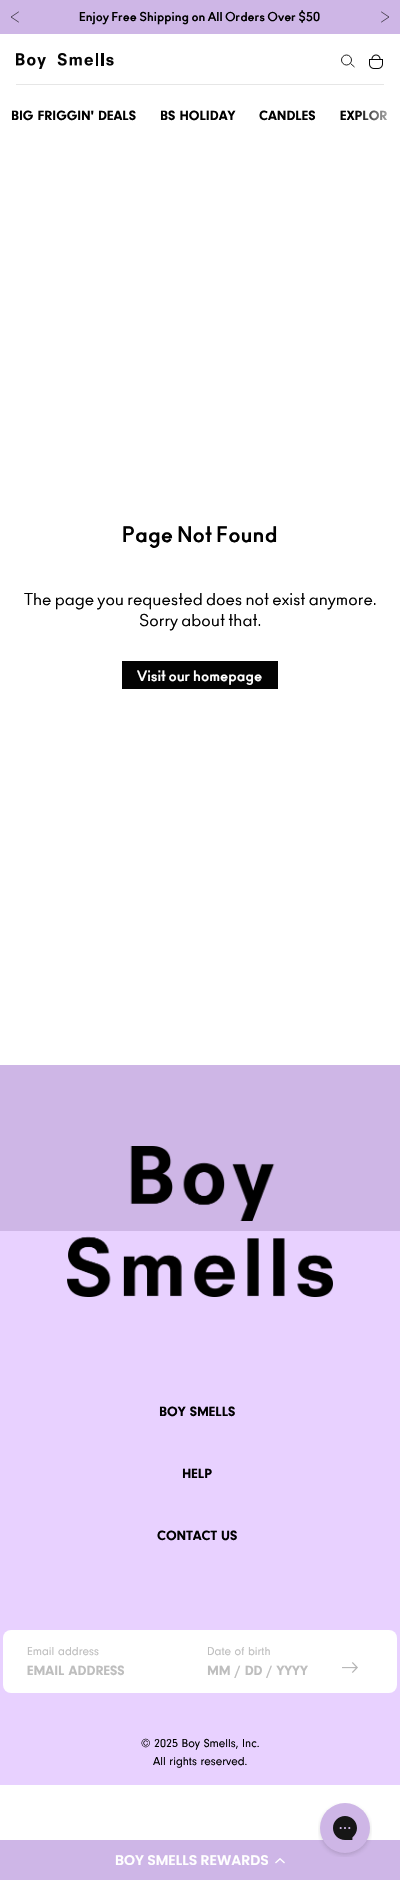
void draw(SkCanvas* canvas) {
  SkPaint paint;
  paint.setAntiAlias(true);
  auto face = [&](const char* family, int weight, float size, bool italic = false) {
    SkFontStyle style(weight, SkFontStyle::kNormal_Width,
      italic ? SkFontStyle::kItalic_Slant : SkFontStyle::kUpright_Slant);
    SkFont result(fontMgr->matchFamilyStyle(family, style), size);
    result.setSubpixel(true);
    return result;
  };
  auto paste = [&](const char* path, float x, float y, float w, float h) {
    auto image = SkImages::DeferredFromEncodedData(SkData::MakeFromFileName(path));
    canvas->drawImageRect(image, SkRect::MakeXYWH(x, y, w, h), SkSamplingOptions());
  };
  auto shape = [&](const char* data, bool evenOdd = false) {
    SkPath result = *SkParsePath::FromSVGString(data);
    if (evenOdd) result.setFillType(SkPathFillType::kEvenOdd);
    return result;
  };
  canvas->clear(0xffffffff);
  paint.setColor(0xffceb6e6);
  canvas->drawRect(SkRect::MakeXYWH(0, 0, 400, 34), paint);
  paint.setStroke(true);
  paint.setStrokeWidth(0.6f);
  paint.setStrokeCap(SkPaint::kRound_Cap);
  paint.setStrokeJoin(SkPaint::kRound_Join);
  paint.setColor(0xff000000);
  canvas->drawPath(shape("M18.5 22L11 17L18.5 12"), paint);
  canvas->drawPath(shape("M381.5 22L389 17L381.5 12"), paint);
  paint.setStroke(false);
  paint.setColor(0xffe6e6e6);
  canvas->drawRect(SkRect::MakeXYWH(16, 84, 368, 1), paint);
  paste("img/1.png", 16, 53, 98, 16);
  paint.setStroke(true);
  paint.setStrokeWidth(0.9f);
  paint.setStrokeCap(SkPaint::kButt_Cap);
  paint.setStrokeJoin(SkPaint::kMiter_Join);
  paint.setColor(0xff030303);
  canvas->drawCircle(346.5f, 60, 5, paint);
  canvas->drawPath(shape("M350.5 63.5L354.5 67"), paint);
  paste("img/2.png", 369, 54, 14, 15);
  paint.setStroke(false);
  {
    const struct { float x, y, w, h; SkColor color; } items[] = {
      {122, 661, 156, 28, 0xff030303},
      {0, 1065, 400, 166, 0xffceb6e6},
      {0, 1231, 400, 554, 0xffe8d1ff},
    };
    for (auto [x, y, w, h, color] : items) {
      paint.setColor(color);
      canvas->drawRect(SkRect::MakeXYWH(x, y, w, h), paint);
    }
  }
  paste("img/3.png", 67, 1146, 266, 151);
  paint.setColor(0xffffffff);
  canvas->drawRoundRect(SkRect::MakeXYWH(3, 1630, 394, 63), 8, 8, paint);
  paste("img/4.png", 342, 1662, 16, 11);
  paint.setColor(0xffceb6e7);
  canvas->drawRect(SkRect::MakeXYWH(0, 1840, 400, 40), paint);
  paste("img/5.png", 318, 1803, 54, 54);
  paste("img/6.png", 275, 1858, 10, 6);
  auto f0 = face("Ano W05", 700, 12);
  paint.setColor(0xff000000);
  canvas->drawString("Enjoy Free Shipping on All Orders Over $50", 79, 21, f0, paint);
  auto f1 = face("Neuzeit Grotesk", 700, 14);
  {
    const struct { const char* s; float x, y; } items[] = {
      {"BIG FRIGGIN' DEALS", 11, 120},
      {"BS HOLIDAY", 160, 120},
      {"CANDLES", 259, 120},
      {"EXPLOR", 340, 120},
    };
    for (auto [s, x, y] : items) {
      canvas->drawString(s, x, y, f1, paint);
    }
  }
  {
    const SkColor colors[] = {0xffffffff, 0x00ffffff};
    const float stops[] = {0, 1};
    const SkPoint ends[] = {{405, 115}, {355, 115}};
    paint.setShader(SkGradientShader::MakeLinear(ends, colors, stops, 2, SkTileMode::kClamp));
    paint.setAlpha(255);
  }
  canvas->drawRect(SkRect::MakeXYWH(356, 110, 31, 11), paint);
  auto f2 = face("Ano W05", 700, 21);
  paint.setShader(nullptr);
  paint.setColor(0xff000000);
  canvas->drawString("Page Not Found", 122, 542, f2, paint);
  auto f3 = face("Ano W05", 400, 16);
  canvas->drawString("The page you requested does not exist anymore.", 24, 605, f3, paint);
  canvas->drawString("Sorry about that.", 139, 626, f3, paint);
  auto f4 = face("Ano W05", 700, 14);
  paint.setColor(0xffffffff);
  canvas->drawString("Visit our homepage", 137, 681, f4, paint);
  paint.setColor(0xff000000);
  {
    const struct { const char* s; float x, y; } items[] = {
      {"BOY SMELLS", 159, 1416},
      {"HELP", 182, 1478},
      {"CONTACT US", 157, 1540},
    };
    for (auto [s, x, y] : items) {
      canvas->drawString(s, x, y, f1, paint);
    }
  }
  auto f5 = face("Neuzeit Grotesk", 400, 12);
  paint.setColor(0xffbebebe);
  canvas->drawString("Email address", 27, 1655, f5, paint);
  canvas->drawString("EMAIL ADDRESS", 27, 1675, f1, paint);
  canvas->drawString("Date of birth", 207, 1655, f5, paint);
  canvas->drawString("MM / DD / YYYY", 207, 1675, f1, paint);
  paint.setColor(0xff000000);
  canvas->drawString("© 2025 Boy Smells, Inc.", 141, 1747, f5, paint);
  canvas->drawString("All rights reserved.", 153, 1765, f5, paint);
  auto f6 = face("Poppins", 600, 14);
  paint.setColor(0xffffffff);
  canvas->drawString("BOY SMELLS REWARDS", 115, 1865, f6, paint);
}
